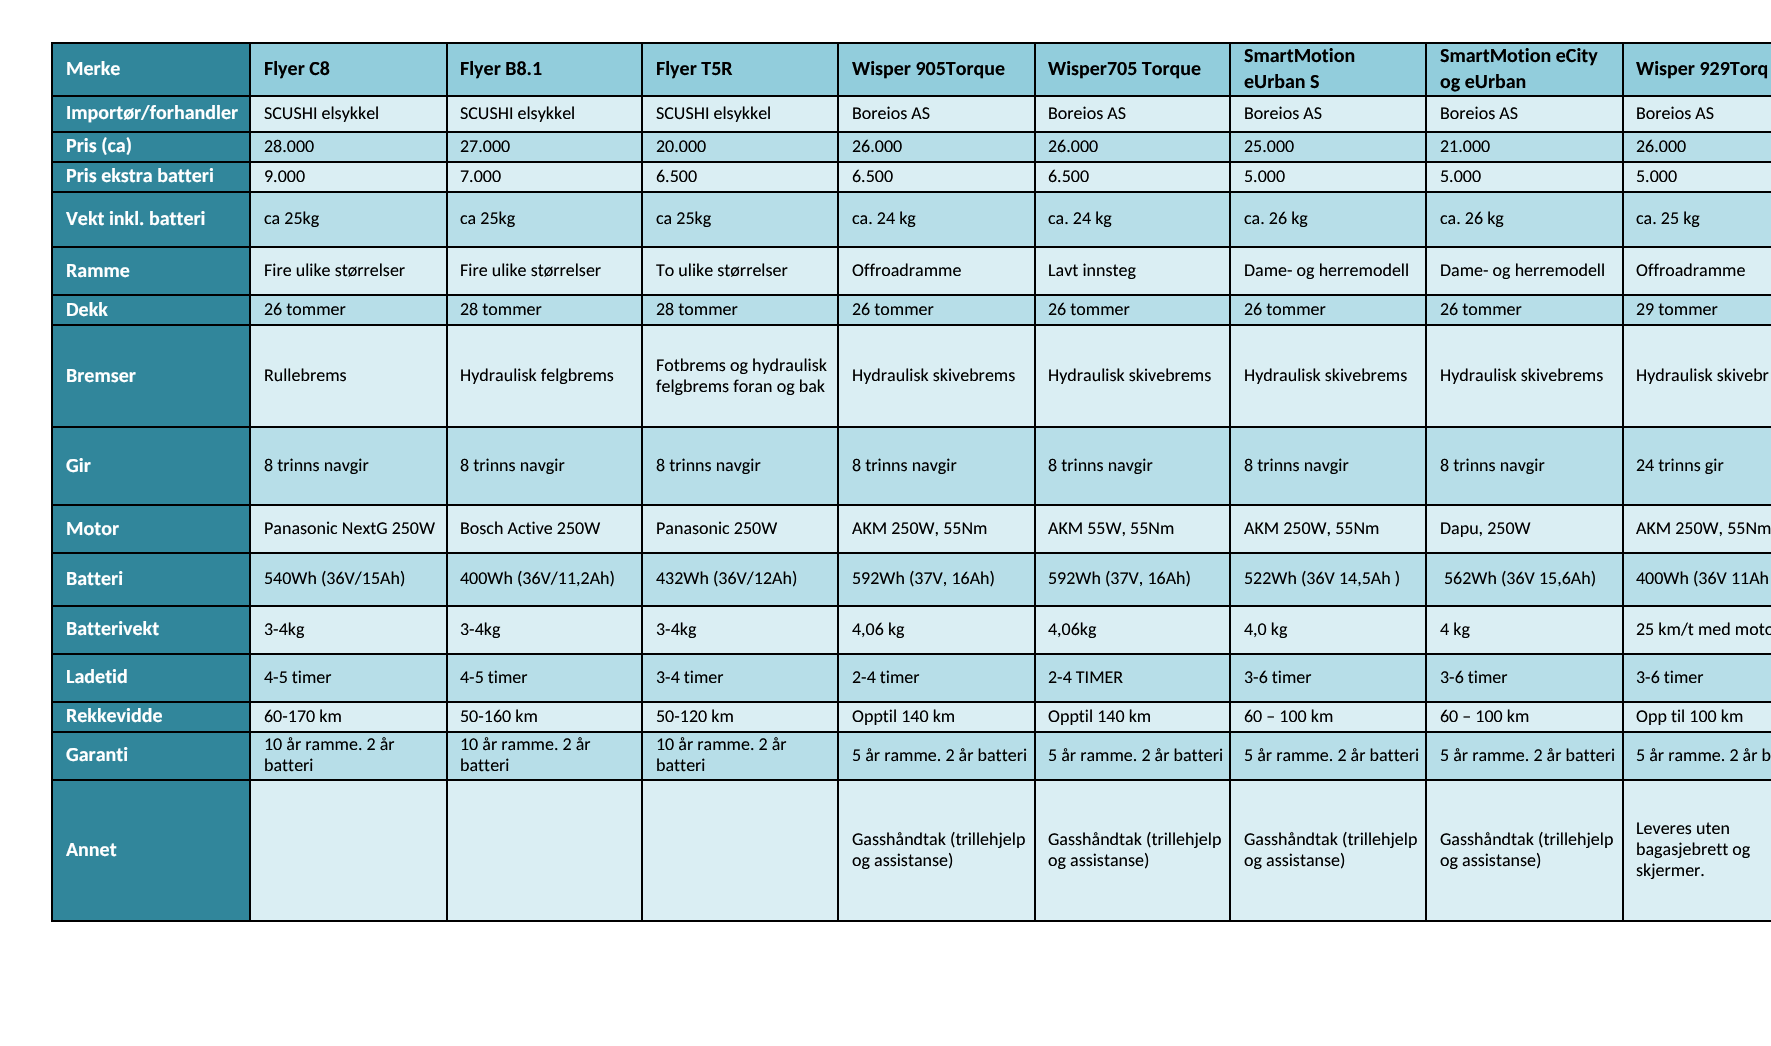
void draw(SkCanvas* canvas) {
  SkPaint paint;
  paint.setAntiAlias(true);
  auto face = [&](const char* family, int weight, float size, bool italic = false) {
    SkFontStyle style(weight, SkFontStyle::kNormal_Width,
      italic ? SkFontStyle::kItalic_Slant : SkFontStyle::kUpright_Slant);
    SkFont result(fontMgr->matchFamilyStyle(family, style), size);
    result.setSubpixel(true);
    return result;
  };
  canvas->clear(0xffffffff);
  {
    const struct { float x, y, w, h; SkColor color; } items[] = {
      {53, 44, 196, 51, 0xff31869b},
      {1622, 42, 149, 2, 0xff000000},
      {1622, 779, 149, 2, 0xff000000},
      {1622, 920, 149, 2, 0xff000000},
      {1622, 779, 2, 142, 0xff000000},
      {1425, 779, 198, 2, 0xff000000},
      {1622, 731, 2, 49, 0xff000000},
      {1622, 731, 149, 2, 0xff000000},
      {1622, 701, 2, 31, 0xff000000},
      {1622, 701, 149, 2, 0xff000000},
      {1622, 653, 2, 49, 0xff000000},
      {1622, 653, 149, 2, 0xff000000},
      {1622, 605, 2, 49, 0xff000000},
      {1622, 605, 149, 2, 0xff000000},
      {1622, 552, 2, 54, 0xff000000},
      {1622, 552, 149, 2, 0xff000000},
      {1622, 504, 2, 50, 0xff000000},
      {1622, 504, 149, 2, 0xff000000},
      {1622, 426, 2, 80, 0xff000000},
      {1622, 426, 149, 2, 0xff000000},
      {1622, 324, 2, 104, 0xff000000},
      {1622, 324, 149, 2, 0xff000000},
      {1622, 294, 2, 32, 0xff000000},
      {1622, 294, 149, 2, 0xff000000},
      {1622, 246, 2, 50, 0xff000000},
      {1622, 246, 149, 2, 0xff000000},
      {1622, 191, 2, 57, 0xff000000},
      {1622, 191, 149, 2, 0xff000000},
      {1622, 161, 2, 31, 0xff000000},
      {1622, 161, 149, 2, 0xff000000},
      {1622, 131, 2, 31, 0xff000000},
      {1622, 131, 149, 2, 0xff000000},
      {1622, 95, 2, 37, 0xff000000},
      {1622, 95, 149, 2, 0xff000000},
      {1622, 42, 2, 54, 0xff000000},
      {1425, 42, 198, 2, 0xff000000},
      {1425, 920, 198, 2, 0xff000000},
      {1425, 779, 2, 142, 0xff000000},
      {1229, 779, 198, 2, 0xff000000},
      {1425, 731, 2, 49, 0xff000000},
      {1425, 731, 198, 2, 0xff000000},
      {1425, 701, 2, 31, 0xff000000},
      {1425, 701, 198, 2, 0xff000000},
      {1425, 653, 2, 49, 0xff000000},
      {1425, 653, 198, 2, 0xff000000},
      {1425, 605, 2, 49, 0xff000000},
      {1425, 605, 198, 2, 0xff000000},
      {1425, 552, 2, 54, 0xff000000},
      {1425, 552, 198, 2, 0xff000000},
      {1425, 504, 2, 50, 0xff000000},
      {1425, 504, 198, 2, 0xff000000},
      {1425, 426, 2, 80, 0xff000000},
      {1425, 426, 198, 2, 0xff000000},
      {1425, 324, 2, 104, 0xff000000},
      {1425, 324, 198, 2, 0xff000000},
      {1425, 294, 2, 32, 0xff000000},
      {1425, 294, 198, 2, 0xff000000},
      {1425, 246, 2, 50, 0xff000000},
      {1425, 246, 198, 2, 0xff000000},
      {1425, 191, 2, 57, 0xff000000},
      {1425, 191, 198, 2, 0xff000000},
      {1425, 161, 2, 31, 0xff000000},
      {1425, 161, 198, 2, 0xff000000},
      {1425, 131, 2, 31, 0xff000000},
      {1425, 131, 198, 2, 0xff000000},
      {1425, 95, 2, 37, 0xff000000},
      {1425, 95, 198, 2, 0xff000000},
      {1425, 42, 2, 54, 0xff000000},
      {1229, 42, 198, 2, 0xff000000},
      {1229, 920, 198, 2, 0xff000000},
      {1229, 779, 2, 142, 0xff000000},
      {1034, 779, 196, 2, 0xff000000},
      {1229, 731, 2, 49, 0xff000000},
      {1229, 731, 198, 2, 0xff000000},
      {1229, 701, 2, 31, 0xff000000},
      {1229, 701, 198, 2, 0xff000000},
      {1229, 653, 2, 49, 0xff000000},
      {1229, 653, 198, 2, 0xff000000},
      {1229, 605, 2, 49, 0xff000000},
      {1229, 605, 198, 2, 0xff000000},
      {1229, 552, 2, 54, 0xff000000},
      {1229, 552, 198, 2, 0xff000000},
      {1229, 504, 2, 50, 0xff000000},
      {1229, 504, 198, 2, 0xff000000},
      {1229, 426, 2, 80, 0xff000000},
      {1229, 426, 198, 2, 0xff000000},
      {1229, 324, 2, 104, 0xff000000},
      {1229, 324, 198, 2, 0xff000000},
      {1229, 294, 2, 32, 0xff000000},
      {1229, 294, 198, 2, 0xff000000},
      {1229, 246, 2, 50, 0xff000000},
      {1229, 246, 198, 2, 0xff000000},
      {1229, 191, 2, 57, 0xff000000},
      {1229, 191, 198, 2, 0xff000000},
      {1229, 161, 2, 31, 0xff000000},
      {1229, 161, 198, 2, 0xff000000},
      {1229, 131, 2, 31, 0xff000000},
      {1229, 131, 198, 2, 0xff000000},
      {1229, 95, 2, 37, 0xff000000},
      {1229, 95, 198, 2, 0xff000000},
      {1229, 42, 2, 54, 0xff000000},
      {1034, 42, 196, 2, 0xff000000},
      {1034, 920, 196, 2, 0xff000000},
      {1034, 779, 2, 142, 0xff000000},
      {837, 779, 198, 2, 0xff000000},
      {1034, 731, 2, 49, 0xff000000},
      {1034, 731, 196, 2, 0xff000000},
      {1034, 701, 2, 31, 0xff000000},
      {1034, 701, 196, 2, 0xff000000},
      {1034, 653, 2, 49, 0xff000000},
      {1034, 653, 196, 2, 0xff000000},
      {1034, 605, 2, 49, 0xff000000},
      {1034, 605, 196, 2, 0xff000000},
      {1034, 552, 2, 54, 0xff000000},
      {1034, 552, 196, 2, 0xff000000},
      {1034, 504, 2, 50, 0xff000000},
      {1034, 504, 196, 2, 0xff000000},
      {1034, 426, 2, 80, 0xff000000},
      {1034, 426, 196, 2, 0xff000000},
      {1034, 324, 2, 104, 0xff000000},
      {1034, 324, 196, 2, 0xff000000},
      {1034, 294, 2, 32, 0xff000000},
      {1034, 294, 196, 2, 0xff000000},
      {1034, 246, 2, 50, 0xff000000},
      {1034, 246, 196, 2, 0xff000000},
      {1034, 191, 2, 57, 0xff000000},
      {1034, 191, 196, 2, 0xff000000},
      {1034, 161, 2, 31, 0xff000000},
      {1034, 161, 196, 2, 0xff000000},
      {1034, 131, 2, 31, 0xff000000},
      {1034, 131, 196, 2, 0xff000000},
      {1034, 95, 2, 37, 0xff000000},
      {1034, 95, 196, 2, 0xff000000},
      {1034, 42, 2, 54, 0xff000000},
      {837, 42, 198, 2, 0xff000000},
      {837, 920, 198, 2, 0xff000000},
      {837, 779, 2, 142, 0xff000000},
      {641, 779, 198, 2, 0xff000000},
      {837, 731, 2, 49, 0xff000000},
      {837, 731, 198, 2, 0xff000000},
      {837, 701, 2, 31, 0xff000000},
      {837, 701, 198, 2, 0xff000000},
      {837, 653, 2, 49, 0xff000000},
      {837, 653, 198, 2, 0xff000000},
      {837, 605, 2, 49, 0xff000000},
      {837, 605, 198, 2, 0xff000000},
      {837, 552, 2, 54, 0xff000000},
      {837, 552, 198, 2, 0xff000000},
      {837, 504, 2, 50, 0xff000000},
      {837, 504, 198, 2, 0xff000000},
      {837, 426, 2, 80, 0xff000000},
      {837, 426, 198, 2, 0xff000000},
      {837, 324, 2, 104, 0xff000000},
      {837, 324, 198, 2, 0xff000000},
      {837, 294, 2, 32, 0xff000000},
      {837, 294, 198, 2, 0xff000000},
      {837, 246, 2, 50, 0xff000000},
      {837, 246, 198, 2, 0xff000000},
      {837, 191, 2, 57, 0xff000000},
      {837, 191, 198, 2, 0xff000000},
      {837, 161, 2, 31, 0xff000000},
      {837, 161, 198, 2, 0xff000000},
      {837, 131, 2, 31, 0xff000000},
      {837, 131, 198, 2, 0xff000000},
      {837, 95, 2, 37, 0xff000000},
      {837, 95, 198, 2, 0xff000000},
      {837, 42, 2, 54, 0xff000000},
      {641, 42, 198, 2, 0xff000000},
      {641, 920, 198, 2, 0xff000000},
      {641, 779, 2, 142, 0xff000000},
      {446, 779, 196, 2, 0xff000000},
      {641, 731, 2, 49, 0xff000000},
      {641, 731, 198, 2, 0xff000000},
      {641, 701, 2, 31, 0xff000000},
      {641, 701, 198, 2, 0xff000000},
      {641, 653, 2, 49, 0xff000000},
      {641, 653, 198, 2, 0xff000000},
      {641, 605, 2, 49, 0xff000000},
      {641, 605, 198, 2, 0xff000000},
      {641, 552, 2, 54, 0xff000000},
      {641, 552, 198, 2, 0xff000000},
      {641, 504, 2, 50, 0xff000000},
      {641, 504, 198, 2, 0xff000000},
      {641, 426, 2, 80, 0xff000000},
      {641, 426, 198, 2, 0xff000000},
      {641, 324, 2, 104, 0xff000000},
      {641, 324, 198, 2, 0xff000000},
      {641, 294, 2, 32, 0xff000000},
      {641, 294, 198, 2, 0xff000000},
      {641, 246, 2, 50, 0xff000000},
      {641, 246, 198, 2, 0xff000000},
      {641, 191, 2, 57, 0xff000000},
      {641, 191, 198, 2, 0xff000000},
      {641, 161, 2, 31, 0xff000000},
      {641, 161, 198, 2, 0xff000000},
      {641, 131, 2, 31, 0xff000000},
      {641, 131, 198, 2, 0xff000000},
      {641, 95, 2, 37, 0xff000000},
      {641, 95, 198, 2, 0xff000000},
      {641, 42, 2, 54, 0xff000000},
      {446, 42, 196, 2, 0xff000000},
      {446, 920, 196, 2, 0xff000000},
      {446, 779, 2, 142, 0xff000000},
      {249, 779, 198, 2, 0xff000000},
      {446, 731, 2, 49, 0xff000000},
      {446, 731, 196, 2, 0xff000000},
      {446, 701, 2, 31, 0xff000000},
      {446, 701, 196, 2, 0xff000000},
      {446, 653, 2, 49, 0xff000000},
      {446, 653, 196, 2, 0xff000000},
      {446, 605, 2, 49, 0xff000000},
      {446, 605, 196, 2, 0xff000000},
      {446, 552, 2, 54, 0xff000000},
      {446, 552, 196, 2, 0xff000000},
      {446, 504, 2, 50, 0xff000000},
      {446, 504, 196, 2, 0xff000000},
      {446, 426, 2, 80, 0xff000000},
      {446, 426, 196, 2, 0xff000000},
      {446, 324, 2, 104, 0xff000000},
      {446, 324, 196, 2, 0xff000000},
      {446, 294, 2, 32, 0xff000000},
      {446, 294, 196, 2, 0xff000000},
      {446, 246, 2, 50, 0xff000000},
      {446, 246, 196, 2, 0xff000000},
      {446, 191, 2, 57, 0xff000000},
      {446, 191, 196, 2, 0xff000000},
      {446, 161, 2, 31, 0xff000000},
      {446, 161, 196, 2, 0xff000000},
      {446, 131, 2, 31, 0xff000000},
      {446, 131, 196, 2, 0xff000000},
      {446, 95, 2, 37, 0xff000000},
      {446, 95, 196, 2, 0xff000000},
      {446, 42, 2, 54, 0xff000000},
      {249, 42, 198, 2, 0xff000000},
      {51, 95, 200, 2, 0xff000000},
      {51, 131, 200, 2, 0xff000000},
      {51, 161, 200, 2, 0xff000000},
      {51, 191, 200, 2, 0xff000000},
      {51, 246, 200, 2, 0xff000000},
      {51, 294, 200, 2, 0xff000000},
      {51, 324, 200, 2, 0xff000000},
      {51, 426, 200, 2, 0xff000000},
      {51, 504, 200, 2, 0xff000000},
      {51, 552, 200, 2, 0xff000000},
      {51, 605, 200, 2, 0xff000000},
      {51, 653, 200, 2, 0xff000000},
      {51, 701, 200, 2, 0xff000000},
      {51, 731, 200, 2, 0xff000000},
      {249, 920, 198, 2, 0xff000000},
      {249, 779, 2, 142, 0xff000000},
      {51, 779, 200, 2, 0xff000000},
      {249, 731, 2, 49, 0xff000000},
      {249, 731, 198, 2, 0xff000000},
      {249, 701, 2, 31, 0xff000000},
      {249, 701, 198, 2, 0xff000000},
      {249, 653, 2, 49, 0xff000000},
      {249, 653, 198, 2, 0xff000000},
      {249, 605, 2, 49, 0xff000000},
      {249, 605, 198, 2, 0xff000000},
      {249, 552, 2, 54, 0xff000000},
      {249, 552, 198, 2, 0xff000000},
      {249, 504, 2, 50, 0xff000000},
      {249, 504, 198, 2, 0xff000000},
      {249, 426, 2, 80, 0xff000000},
      {249, 426, 198, 2, 0xff000000},
      {249, 324, 2, 104, 0xff000000},
      {249, 324, 198, 2, 0xff000000},
      {249, 294, 2, 32, 0xff000000},
      {249, 294, 198, 2, 0xff000000},
      {249, 246, 2, 50, 0xff000000},
      {249, 246, 198, 2, 0xff000000},
      {249, 191, 2, 57, 0xff000000},
      {249, 191, 198, 2, 0xff000000},
      {249, 161, 2, 31, 0xff000000},
      {249, 161, 198, 2, 0xff000000},
      {249, 131, 2, 31, 0xff000000},
      {249, 131, 198, 2, 0xff000000},
      {249, 95, 2, 37, 0xff000000},
      {249, 95, 198, 2, 0xff000000},
      {249, 42, 2, 54, 0xff000000},
      {51, 42, 200, 2, 0xff000000},
      {51, 920, 200, 2, 0xff000000},
      {51, 779, 2, 142, 0xff000000},
      {51, 731, 2, 49, 0xff000000},
      {51, 701, 2, 31, 0xff000000},
      {51, 653, 2, 49, 0xff000000},
      {51, 605, 2, 49, 0xff000000},
      {51, 552, 2, 54, 0xff000000},
      {51, 504, 2, 50, 0xff000000},
      {51, 426, 2, 80, 0xff000000},
      {51, 324, 2, 104, 0xff000000},
      {51, 294, 2, 32, 0xff000000},
      {51, 246, 2, 50, 0xff000000},
      {51, 191, 2, 57, 0xff000000},
      {51, 161, 2, 31, 0xff000000},
      {51, 131, 2, 31, 0xff000000},
      {51, 95, 2, 37, 0xff000000},
      {51, 42, 2, 54, 0xff000000},
      {251, 44, 195, 51, 0xff92cddc},
      {448, 44, 193, 51, 0xff92cddc},
      {643, 44, 194, 51, 0xff92cddc},
      {839, 44, 195, 51, 0xff92cddc},
      {1036, 44, 193, 51, 0xff92cddc},
      {1231, 44, 194, 51, 0xff92cddc},
      {1427, 44, 195, 51, 0xff92cddc},
      {1624, 44, 147, 51, 0xff92cddc},
      {53, 97, 196, 34, 0xff31869b},
      {251, 97, 195, 34, 0xffdaeef3},
      {448, 97, 193, 34, 0xffdaeef3},
      {643, 97, 194, 34, 0xffdaeef3},
      {839, 97, 195, 34, 0xffdaeef3},
      {1036, 97, 193, 34, 0xffdaeef3},
      {1231, 97, 194, 34, 0xffdaeef3},
      {1427, 97, 195, 34, 0xffdaeef3},
      {1624, 97, 147, 34, 0xffdaeef3},
      {53, 133, 196, 28, 0xff31869b},
      {251, 133, 195, 28, 0xffb7dee8},
      {448, 133, 193, 28, 0xffb7dee8},
      {643, 133, 194, 28, 0xffb7dee8},
      {839, 133, 195, 28, 0xffb7dee8},
      {1036, 133, 193, 28, 0xffb7dee8},
      {1231, 133, 194, 28, 0xffb7dee8},
      {1427, 133, 195, 28, 0xffb7dee8},
      {1624, 133, 147, 28, 0xffb7dee8},
      {53, 163, 196, 28, 0xff31869b},
      {251, 163, 195, 28, 0xffdaeef3},
      {448, 163, 193, 28, 0xffdaeef3},
      {643, 163, 194, 28, 0xffdaeef3},
      {839, 163, 195, 28, 0xffdaeef3},
      {1036, 163, 193, 28, 0xffdaeef3},
      {1231, 163, 194, 28, 0xffdaeef3},
      {1427, 163, 195, 28, 0xffdaeef3},
      {1624, 163, 147, 28, 0xffdaeef3},
      {53, 193, 196, 53, 0xff31869b},
      {251, 193, 195, 53, 0xffb7dee8},
      {448, 193, 193, 53, 0xffb7dee8},
      {643, 193, 194, 53, 0xffb7dee8},
      {839, 193, 195, 53, 0xffb7dee8},
      {1036, 193, 193, 53, 0xffb7dee8},
      {1231, 193, 194, 53, 0xffb7dee8},
      {1427, 193, 195, 53, 0xffb7dee8},
      {1624, 193, 147, 53, 0xffb7dee8},
      {53, 248, 196, 46, 0xff31869b},
      {251, 248, 195, 46, 0xffdaeef3},
      {448, 248, 193, 46, 0xffdaeef3},
      {643, 248, 194, 46, 0xffdaeef3},
      {839, 248, 195, 46, 0xffdaeef3},
      {1036, 248, 193, 46, 0xffdaeef3},
      {1231, 248, 194, 46, 0xffdaeef3},
      {1427, 248, 195, 46, 0xffdaeef3},
      {1624, 248, 147, 46, 0xffdaeef3},
      {53, 296, 196, 28, 0xff31869b},
      {251, 296, 195, 28, 0xffb7dee8},
      {448, 296, 193, 28, 0xffb7dee8},
      {643, 296, 194, 28, 0xffb7dee8},
      {839, 296, 195, 28, 0xffb7dee8},
      {1036, 296, 193, 28, 0xffb7dee8},
      {1231, 296, 194, 28, 0xffb7dee8},
      {1427, 296, 195, 28, 0xffb7dee8},
      {1624, 296, 147, 28, 0xffb7dee8},
      {53, 326, 196, 100, 0xff31869b},
      {251, 326, 195, 100, 0xffdaeef3},
      {448, 326, 193, 100, 0xffdaeef3},
      {643, 326, 194, 100, 0xffdaeef3},
      {839, 326, 195, 100, 0xffdaeef3},
      {1036, 326, 193, 100, 0xffdaeef3},
      {1231, 326, 194, 100, 0xffdaeef3},
      {1427, 326, 195, 100, 0xffdaeef3},
      {1624, 326, 147, 100, 0xffdaeef3},
      {53, 428, 196, 76, 0xff31869b},
      {251, 428, 195, 76, 0xffb7dee8},
      {448, 428, 193, 76, 0xffb7dee8},
      {643, 428, 194, 76, 0xffb7dee8},
      {839, 428, 195, 76, 0xffb7dee8},
      {1036, 428, 193, 76, 0xffb7dee8},
      {1231, 428, 194, 76, 0xffb7dee8},
      {1427, 428, 195, 76, 0xffb7dee8},
      {1624, 428, 147, 76, 0xffb7dee8},
      {53, 506, 196, 46, 0xff31869b},
      {251, 506, 195, 46, 0xffdaeef3},
      {448, 506, 193, 46, 0xffdaeef3},
      {643, 506, 194, 46, 0xffdaeef3},
      {839, 506, 195, 46, 0xffdaeef3},
      {1036, 506, 193, 46, 0xffdaeef3},
      {1231, 506, 194, 46, 0xffdaeef3},
      {1427, 506, 195, 46, 0xffdaeef3},
      {1624, 506, 147, 46, 0xffdaeef3},
      {53, 554, 196, 51, 0xff31869b},
      {251, 554, 195, 51, 0xffb7dee8},
      {448, 554, 193, 51, 0xffb7dee8},
      {643, 554, 194, 51, 0xffb7dee8},
      {839, 554, 195, 51, 0xffb7dee8},
      {1036, 554, 193, 51, 0xffb7dee8},
      {1231, 554, 194, 51, 0xffb7dee8},
      {1427, 554, 195, 51, 0xffb7dee8},
      {1624, 554, 147, 51, 0xffb7dee8},
      {53, 607, 196, 46, 0xff31869b},
      {251, 607, 195, 46, 0xffdaeef3},
      {448, 607, 193, 46, 0xffdaeef3},
      {643, 607, 194, 46, 0xffdaeef3},
      {839, 607, 195, 46, 0xffdaeef3},
      {1036, 607, 193, 46, 0xffdaeef3},
      {1231, 607, 194, 46, 0xffdaeef3},
      {1427, 607, 195, 46, 0xffdaeef3},
      {1624, 607, 147, 46, 0xffdaeef3},
      {53, 655, 196, 46, 0xff31869b},
      {251, 655, 195, 46, 0xffb7dee8},
      {448, 655, 193, 46, 0xffb7dee8},
      {643, 655, 194, 46, 0xffb7dee8},
      {839, 655, 195, 46, 0xffb7dee8},
      {1036, 655, 193, 46, 0xffb7dee8},
      {1231, 655, 194, 46, 0xffb7dee8},
      {1427, 655, 195, 46, 0xffb7dee8},
      {1624, 655, 147, 46, 0xffb7dee8},
      {53, 703, 196, 28, 0xff31869b},
      {251, 703, 195, 28, 0xffdaeef3},
      {448, 703, 193, 28, 0xffdaeef3},
      {643, 703, 194, 28, 0xffdaeef3},
      {839, 703, 195, 28, 0xffdaeef3},
      {1036, 703, 193, 28, 0xffdaeef3},
      {1231, 703, 194, 28, 0xffdaeef3},
      {1427, 703, 195, 28, 0xffdaeef3},
      {1624, 703, 147, 28, 0xffdaeef3},
      {53, 733, 196, 46, 0xff31869b},
      {251, 733, 195, 46, 0xffb7dee8},
      {448, 733, 193, 46, 0xffb7dee8},
      {643, 733, 194, 46, 0xffb7dee8},
      {839, 733, 195, 46, 0xffb7dee8},
      {1036, 733, 193, 46, 0xffb7dee8},
      {1231, 733, 194, 46, 0xffb7dee8},
      {1427, 733, 195, 46, 0xffb7dee8},
      {1624, 733, 147, 46, 0xffb7dee8},
      {53, 781, 196, 139, 0xff31869b},
      {251, 781, 195, 139, 0xffdaeef3},
      {448, 781, 193, 139, 0xffdaeef3},
      {643, 781, 194, 139, 0xffdaeef3},
      {839, 781, 195, 139, 0xffdaeef3},
      {1036, 781, 193, 139, 0xffdaeef3},
      {1231, 781, 194, 139, 0xffdaeef3},
      {1427, 781, 195, 139, 0xffdaeef3},
      {1624, 781, 147, 139, 0xffdaeef3},
    };
    for (auto [x, y, w, h, color] : items) {
      paint.setColor(color);
      canvas->drawRect(SkRect::MakeXYWH(x, y, w, h), paint);
    }
  }
  auto f0 = face("Carlito", 700, 20);
  paint.setColor(0xffffffff);
  canvas->drawString("Merke", 66, 75, f0, paint);
  paint.setColor(0xff000000);
  {
    const struct { const char* s; float x, y; } items[] = {
      {"Flyer C8", 264, 75},
      {"Flyer B8.1", 460, 75},
      {"Flyer T5R", 656, 75},
      {"Wisper 905Torque", 852, 75},
      {"Wisper705 Torque", 1048, 75},
      {"SmartMotion", 1244, 62},
      {"eUrban S", 1244, 88},
      {"SmartMotion eCity", 1440, 62},
      {"og eUrban", 1440, 88},
      {"Wisper 929Torq", 1636, 75},
    };
    for (auto [s, x, y] : items) {
      canvas->drawString(s, x, y, f0, paint);
    }
  }
  paint.setColor(0xffffffff);
  canvas->drawString("Importør/forhandler", 66, 119, f0, paint);
  auto f1 = face("Carlito", 400, 18);
  paint.setColor(0xff000000);
  {
    const struct { const char* s; float x, y; } items[] = {
      {"SCUSHI elsykkel", 264, 119},
      {"SCUSHI elsykkel", 460, 119},
      {"SCUSHI elsykkel", 656, 119},
      {"Boreios AS", 852, 119},
      {"Boreios AS", 1048, 119},
      {"Boreios AS", 1244, 119},
      {"Boreios AS", 1440, 119},
      {"Boreios AS", 1636, 119},
    };
    for (auto [s, x, y] : items) {
      canvas->drawString(s, x, y, f1, paint);
    }
  }
  paint.setColor(0xffffffff);
  canvas->drawString("Pris (ca)", 66, 152, f0, paint);
  paint.setColor(0xff000000);
  {
    const struct { const char* s; float x, y; } items[] = {
      {"28.000", 264, 152},
      {"27.000", 460, 152},
      {"20.000", 656, 152},
      {"26.000", 852, 152},
      {"26.000", 1048, 152},
      {"25.000", 1244, 152},
      {"21.000", 1440, 152},
      {"26.000", 1636, 152},
    };
    for (auto [s, x, y] : items) {
      canvas->drawString(s, x, y, f1, paint);
    }
  }
  paint.setColor(0xffffffff);
  canvas->drawString("Pris ekstra batteri", 66, 182, f0, paint);
  paint.setColor(0xff000000);
  {
    const struct { const char* s; float x, y; } items[] = {
      {"9.000", 264, 182},
      {"7.000", 460, 182},
      {"6.500", 656, 182},
      {"6.500", 852, 182},
      {"6.500", 1048, 182},
      {"5.000", 1244, 182},
      {"5.000", 1440, 182},
      {"5.000", 1636, 182},
    };
    for (auto [s, x, y] : items) {
      canvas->drawString(s, x, y, f1, paint);
    }
  }
  paint.setColor(0xffffffff);
  canvas->drawString("Vekt inkl. batteri", 66, 225, f0, paint);
  paint.setColor(0xff000000);
  {
    const struct { const char* s; float x, y; } items[] = {
      {"ca 25kg", 264, 224},
      {"ca 25kg", 460, 224},
      {"ca 25kg", 656, 224},
      {"ca. 24 kg", 852, 224},
      {"ca. 24 kg", 1048, 224},
      {"ca. 26 kg", 1244, 224},
      {"ca. 26 kg", 1440, 224},
      {"ca. 25 kg", 1636, 224},
    };
    for (auto [s, x, y] : items) {
      canvas->drawString(s, x, y, f1, paint);
    }
  }
  paint.setColor(0xffffffff);
  canvas->drawString("Ramme", 66, 277, f0, paint);
  paint.setColor(0xff000000);
  {
    const struct { const char* s; float x, y; } items[] = {
      {"Fire ulike størrelser", 264, 276},
      {"Fire ulike størrelser", 460, 276},
      {"To ulike størrelser", 656, 276},
      {"Offroadramme", 852, 276},
      {"Lavt innsteg", 1048, 276},
      {"Dame- og herremodell", 1244, 276},
      {"Dame- og herremodell", 1440, 276},
      {"Offroadramme", 1636, 276},
    };
    for (auto [s, x, y] : items) {
      canvas->drawString(s, x, y, f1, paint);
    }
  }
  paint.setColor(0xffffffff);
  canvas->drawString("Dekk", 66, 316, f0, paint);
  paint.setColor(0xff000000);
  {
    const struct { const char* s; float x, y; } items[] = {
      {"26 tommer", 264, 315},
      {"28 tommer", 460, 315},
      {"28 tommer", 656, 315},
      {"26 tommer", 852, 315},
      {"26 tommer", 1048, 315},
      {"26 tommer", 1244, 315},
      {"26 tommer", 1440, 315},
      {"29 tommer", 1636, 315},
    };
    for (auto [s, x, y] : items) {
      canvas->drawString(s, x, y, f1, paint);
    }
  }
  paint.setColor(0xffffffff);
  canvas->drawString("Bremser", 66, 382, f0, paint);
  paint.setColor(0xff000000);
  {
    const struct { const char* s; float x, y; } items[] = {
      {"Rullebrems", 264, 381},
      {"Hydraulisk felgbrems", 460, 381},
      {"Fotbrems og hydraulisk", 656, 371},
      {"felgbrems foran og bak", 656, 392},
      {"Hydraulisk skivebrems", 852, 381},
      {"Hydraulisk skivebrems", 1048, 381},
      {"Hydraulisk skivebrems", 1244, 381},
      {"Hydraulisk skivebrems", 1440, 381},
      {"Hydraulisk skivebr", 1636, 381},
    };
    for (auto [s, x, y] : items) {
      canvas->drawString(s, x, y, f1, paint);
    }
  }
  paint.setColor(0xffffffff);
  canvas->drawString("Gir", 66, 472, f0, paint);
  paint.setColor(0xff000000);
  {
    const struct { const char* s; float x, y; } items[] = {
      {"8 trinns navgir", 264, 471},
      {"8 trinns navgir", 460, 471},
      {"8 trinns navgir", 656, 471},
      {"8 trinns navgir", 852, 471},
      {"8 trinns navgir", 1048, 471},
      {"8 trinns navgir", 1244, 471},
      {"8 trinns navgir", 1440, 471},
      {"24 trinns gir", 1636, 471},
    };
    for (auto [s, x, y] : items) {
      canvas->drawString(s, x, y, f1, paint);
    }
  }
  paint.setColor(0xffffffff);
  canvas->drawString("Motor", 66, 535, f0, paint);
  paint.setColor(0xff000000);
  {
    const struct { const char* s; float x, y; } items[] = {
      {"Panasonic NextG 250W", 264, 534},
      {"Bosch Active 250W", 460, 534},
      {"Panasonic 250W", 656, 534},
      {"AKM 250W, 55Nm", 852, 534},
      {"AKM 55W, 55Nm", 1048, 534},
      {"AKM 250W, 55Nm", 1244, 534},
      {"Dapu, 250W", 1440, 534},
      {"AKM 250W, 55Nm", 1636, 534},
    };
    for (auto [s, x, y] : items) {
      canvas->drawString(s, x, y, f1, paint);
    }
  }
  paint.setColor(0xffffffff);
  canvas->drawString("Batteri", 66, 585, f0, paint);
  paint.setColor(0xff000000);
  {
    const struct { const char* s; float x, y; } items[] = {
      {"540Wh (36V/15Ah)", 264, 584},
      {"400Wh (36V/11,2Ah)", 460, 584},
      {"432Wh (36V/12Ah)", 656, 584},
      {"592Wh (37V, 16Ah)", 852, 584},
      {"592Wh (37V, 16Ah)", 1048, 584},
      {"522Wh (36V 14,5Ah )", 1244, 584},
      {"562Wh (36V 15,6Ah)", 1444, 584},
      {"400Wh (36V 11Ah", 1636, 584},
    };
    for (auto [s, x, y] : items) {
      canvas->drawString(s, x, y, f1, paint);
    }
  }
  paint.setColor(0xffffffff);
  canvas->drawString("Batterivekt", 66, 635, f0, paint);
  paint.setColor(0xff000000);
  {
    const struct { const char* s; float x, y; } items[] = {
      {"3-4kg", 264, 635},
      {"3-4kg", 460, 635},
      {"3-4kg", 656, 635},
      {"4,06 kg", 852, 635},
      {"4,06kg", 1048, 635},
      {"4,0 kg", 1244, 635},
      {"4 kg", 1440, 635},
      {"25 km/t med moto", 1636, 635},
    };
    for (auto [s, x, y] : items) {
      canvas->drawString(s, x, y, f1, paint);
    }
  }
  paint.setColor(0xffffffff);
  canvas->drawString("Ladetid", 66, 683, f0, paint);
  paint.setColor(0xff000000);
  {
    const struct { const char* s; float x, y; } items[] = {
      {"4-5 timer", 264, 683},
      {"4-5 timer", 460, 683},
      {"3-4 timer", 656, 683},
      {"2-4 timer", 852, 683},
      {"2-4 TIMER", 1048, 683},
      {"3-6 timer", 1244, 683},
      {"3-6 timer", 1440, 683},
      {"3-6 timer", 1636, 683},
    };
    for (auto [s, x, y] : items) {
      canvas->drawString(s, x, y, f1, paint);
    }
  }
  paint.setColor(0xffffffff);
  canvas->drawString("Rekkevidde", 66, 722, f0, paint);
  paint.setColor(0xff000000);
  {
    const struct { const char* s; float x, y; } items[] = {
      {"60-170 km", 264, 722},
      {"50-160 km", 460, 722},
      {"50-120 km", 656, 722},
      {"Opptil 140 km", 852, 722},
      {"Opptil 140 km", 1048, 722},
      {"60 – 100 km", 1244, 722},
      {"60 – 100 km", 1440, 722},
      {"Opp til 100 km", 1636, 722},
    };
    for (auto [s, x, y] : items) {
      canvas->drawString(s, x, y, f1, paint);
    }
  }
  paint.setColor(0xffffffff);
  canvas->drawString("Garanti", 66, 761, f0, paint);
  paint.setColor(0xff000000);
  {
    const struct { const char* s; float x, y; } items[] = {
      {"10 år ramme. 2 år", 264, 750},
      {"batteri", 264, 771},
      {"10 år ramme. 2 år", 460, 750},
      {"batteri", 460, 771},
      {"10 år ramme. 2 år", 656, 750},
      {"batteri", 656, 771},
      {"5 år ramme. 2 år batteri", 852, 761},
      {"5 år ramme. 2 år batteri", 1048, 761},
      {"5 år ramme. 2 år batteri", 1244, 761},
      {"5 år ramme. 2 år batteri", 1440, 761},
      {"5 år ramme. 2 år b", 1636, 761},
    };
    for (auto [s, x, y] : items) {
      canvas->drawString(s, x, y, f1, paint);
    }
  }
  paint.setColor(0xffffffff);
  canvas->drawString("Annet", 66, 856, f0, paint);
  paint.setColor(0xff000000);
  {
    const struct { const char* s; float x, y; } items[] = {
      {"Gasshåndtak (trillehjelp", 852, 845},
      {"og assistanse)", 852, 866},
      {"Gasshåndtak (trillehjelp", 1048, 845},
      {"og assistanse)", 1048, 866},
      {"Gasshåndtak (trillehjelp", 1244, 845},
      {"og assistanse)", 1244, 866},
      {"Gasshåndtak (trillehjelp", 1440, 845},
      {"og assistanse)", 1440, 866},
      {"Leveres uten", 1636, 834},
      {"bagasjebrett og", 1636, 855},
      {"skjermer.", 1636, 876},
    };
    for (auto [s, x, y] : items) {
      canvas->drawString(s, x, y, f1, paint);
    }
  }
}
